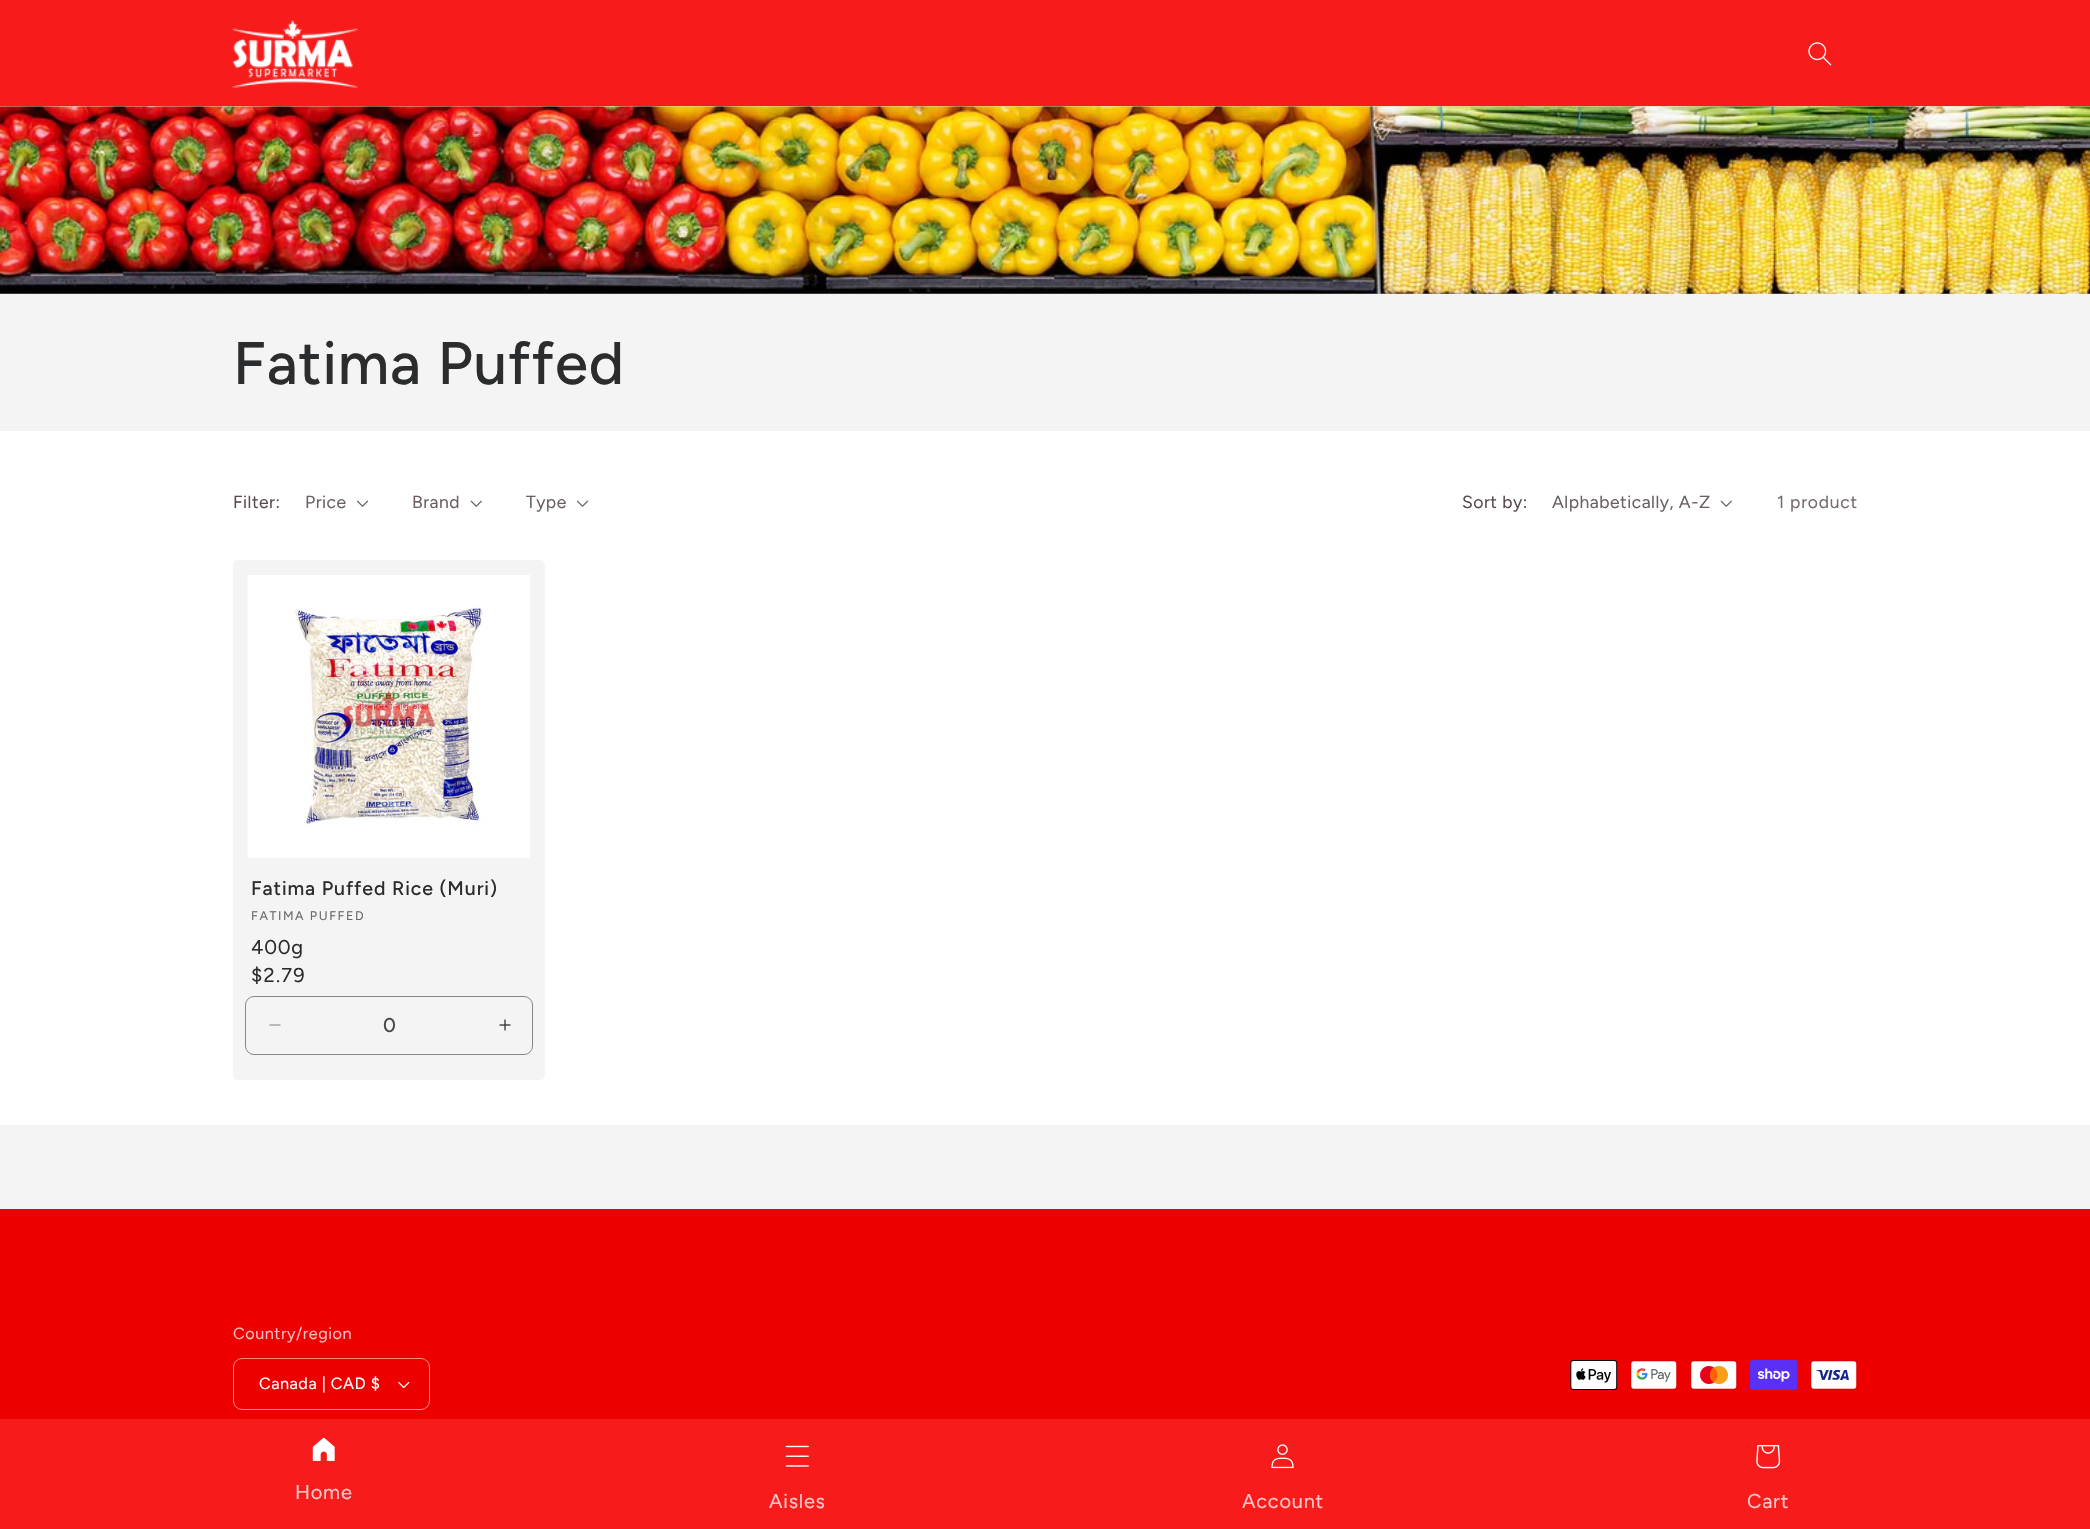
void draw(SkCanvas* canvas) {
  SkPaint paint;
  paint.setAntiAlias(true);
  auto face = [&](const char* family, int weight, float size, bool italic = false) {
    SkFontStyle style(weight, SkFontStyle::kNormal_Width,
      italic ? SkFontStyle::kItalic_Slant : SkFontStyle::kUpright_Slant);
    SkFont result(fontMgr->matchFamilyStyle(family, style), size);
    result.setSubpixel(true);
    return result;
  };
  auto writeSpaced = [&](const char* s, float x, float y, const SkFont& font, const SkPaint& ink, float letter, float word) {
    std::vector<SkGlyphID> glyphs(font.countText(s, strlen(s), SkTextEncoding::kUTF8));
    std::vector<float> xs(glyphs.size());
    font.textToGlyphs(s, strlen(s), SkTextEncoding::kUTF8, glyphs);
    font.getXPos(glyphs, xs, x);
    float extra = 0;
    for (size_t i = 0; i < glyphs.size(); i++) {
      xs[i] += extra;
      extra += letter + word * (glyphs[i] == font.unicharToGlyph(' '));
    }
    canvas->drawTextBlob(SkTextBlob::MakeFromPosHGlyphs(glyphs, xs, y, font), 0, 0, ink);
  };
  auto paste = [&](const char* path, float x, float y, float w, float h) {
    auto image = SkImages::DeferredFromEncodedData(SkData::MakeFromFileName(path));
    canvas->drawImageRect(image, SkRect::MakeXYWH(x, y, w, h), SkSamplingOptions());
  };
  canvas->clear(0xfff4f4f4);
  paint.setColor(0xfff71b1b);
  canvas->drawRect(SkRect::MakeXYWH(0, 0, 2090, 106), paint);
  paste("img/1.png", 232, 20, 126, 68);
  paste("img/2.png", 1808, 42, 24, 24);
  paint.setColor(0xffdfdfdf);
  canvas->drawRect(SkRect::MakeXYWH(0, 106, 2090, 188), paint);
  paste("img/3.png", 0, 106, 2090, 188);
  paint.setColor(0xffffffff);
  canvas->drawRect(SkRect::MakeXYWH(0, 431, 2090, 694), paint);
  paste("img/4.png", 356, 500, 13, 7);
  paste("img/5.png", 470, 500, 12, 7);
  paste("img/4.png", 576, 500, 13, 7);
  paste("img/5.png", 1720, 500, 12, 7);
  paint.setColor(0xfff4f4f4);
  canvas->drawRoundRect(SkRect::MakeXYWH(233, 560, 312, 520), 5, 5, paint);
  paste("img/6.png", 247, 575, 283, 283);
  paste("img/7.png", 269, 1024, 12, 2);
  paste("img/8.png", 499, 1019, 12, 12);
  paint.setStroke(true);
  paint.setStrokeWidth(1);
  paint.setColor(0xff858687);
  canvas->drawRoundRect(SkRect::MakeXYWH(245.5f, 996.5f, 287, 58), 8.5f, 8.5f, paint);
  paint.setStroke(false);
  paint.setColor(0xffee0000);
  canvas->drawRect(SkRect::MakeXYWH(0, 1209, 2090, 210), paint);
  paste("img/9.png", 398, 1381, 12, 8);
  paint.setStroke(true);
  paint.setColor(0xfff78c8c);
  canvas->drawRoundRect(SkRect::MakeXYWH(233.5f, 1358.5f, 196, 51), 8.5f, 8.5f, paint);
  paste("img/10.png", 1570, 1360, 48, 30);
  paste("img/11.png", 1630, 1360, 48, 30);
  paste("img/12.png", 1690, 1360, 48, 30);
  paste("img/13.png", 1750, 1360, 48, 30);
  paste("img/14.png", 1810, 1360, 48, 30);
  paint.setStroke(false);
  paint.setColor(0xfff71b1b);
  canvas->drawRect(SkRect::MakeXYWH(0, 1419, 2090, 110), paint);
  paste("img/15.png", 312, 1438, 23, 23);
  paste("img/16.png", 785, 1445, 24, 22);
  paste("img/17.png", 1271, 1444, 23, 25);
  paste("img/18.png", 1756, 1445, 25, 24);
  auto f0 = face("Figtree", 500, 60);
  paint.setColor(0xff2b2c2d);
  writeSpaced("Fatima Puffed", 233, 384, f0, paint, 0.9f, 0);
  auto f1 = face("Figtree", 400, 17.5f);
  paint.setColor(0xff584a4e);
  writeSpaced("Filter:", 233, 508, f1, paint, 0.5f, 0);
  paint.setColor(0xff6b5f63);
  {
    const struct { const char* s; float x, y; } items[] = {
      {"Price", 305, 508},
      {"Brand", 412, 508},
      {"Type", 526, 508},
    };
    for (auto [s, x, y] : items) {
      writeSpaced(s, x, y, f1, paint, 0.5f, 0);
    }
  }
  paint.setColor(0xff584a4e);
  writeSpaced("Sort by:", 1462, 508, f1, paint, 0.5f, 0);
  paint.setColor(0xff6b5f63);
  writeSpaced("Alphabetically, A-Z", 1552, 508, f1, paint, 0.5f, 0);
  paint.setColor(0xff756a6d);
  writeSpaced("1 product", 1777, 508, f1, paint, 0.75f, 0);
  auto f2 = face("Figtree", 500, 19.5f);
  paint.setColor(0xff2b2c2d);
  writeSpaced("Fatima Puffed Rice (Muri)", 251, 895, f2, paint, 0.9f, 0);
  auto f3 = face("Figtree", 400, 12.5f);
  paint.setColor(0xff676869);
  writeSpaced("FATIMA PUFFED", 251, 920, f3, paint, 1.6f, 0);
  auto f4 = face("Figtree", 400, 20);
  paint.setColor(0xff2b2c2d);
  writeSpaced("400g", 251, 954, f4, paint, 0.75f, 0);
  writeSpaced("$2.79", 251, 982, f4, paint, 1.25f, 0);
  auto f5 = face("Figtree", 500, 20);
  paint.setColor(0xff494a4b);
  canvas->drawString("0", 383, 1032, f5, paint);
  auto f6 = face("Figtree", 400, 16.25f);
  paint.setColor(0xfffbbfbf);
  writeSpaced("Country/region", 233, 1339, f6, paint, 0.5f, 0);
  paint.setColor(0xffffffff);
  writeSpaced("Canada | CAD $", 259, 1389, f6, paint, 0.5f, 0);
  paint.setColor(0xfffdc6c6);
  {
    const struct { const char* s; float x, y; } items[] = {
      {"Home", 295, 1499},
      {"Aisles", 769, 1508},
      {"Account", 1242, 1508},
      {"Cart", 1747, 1508},
    };
    for (auto [s, x, y] : items) {
      writeSpaced(s, x, y, f4, paint, 0.75f, 0);
    }
  }
}
